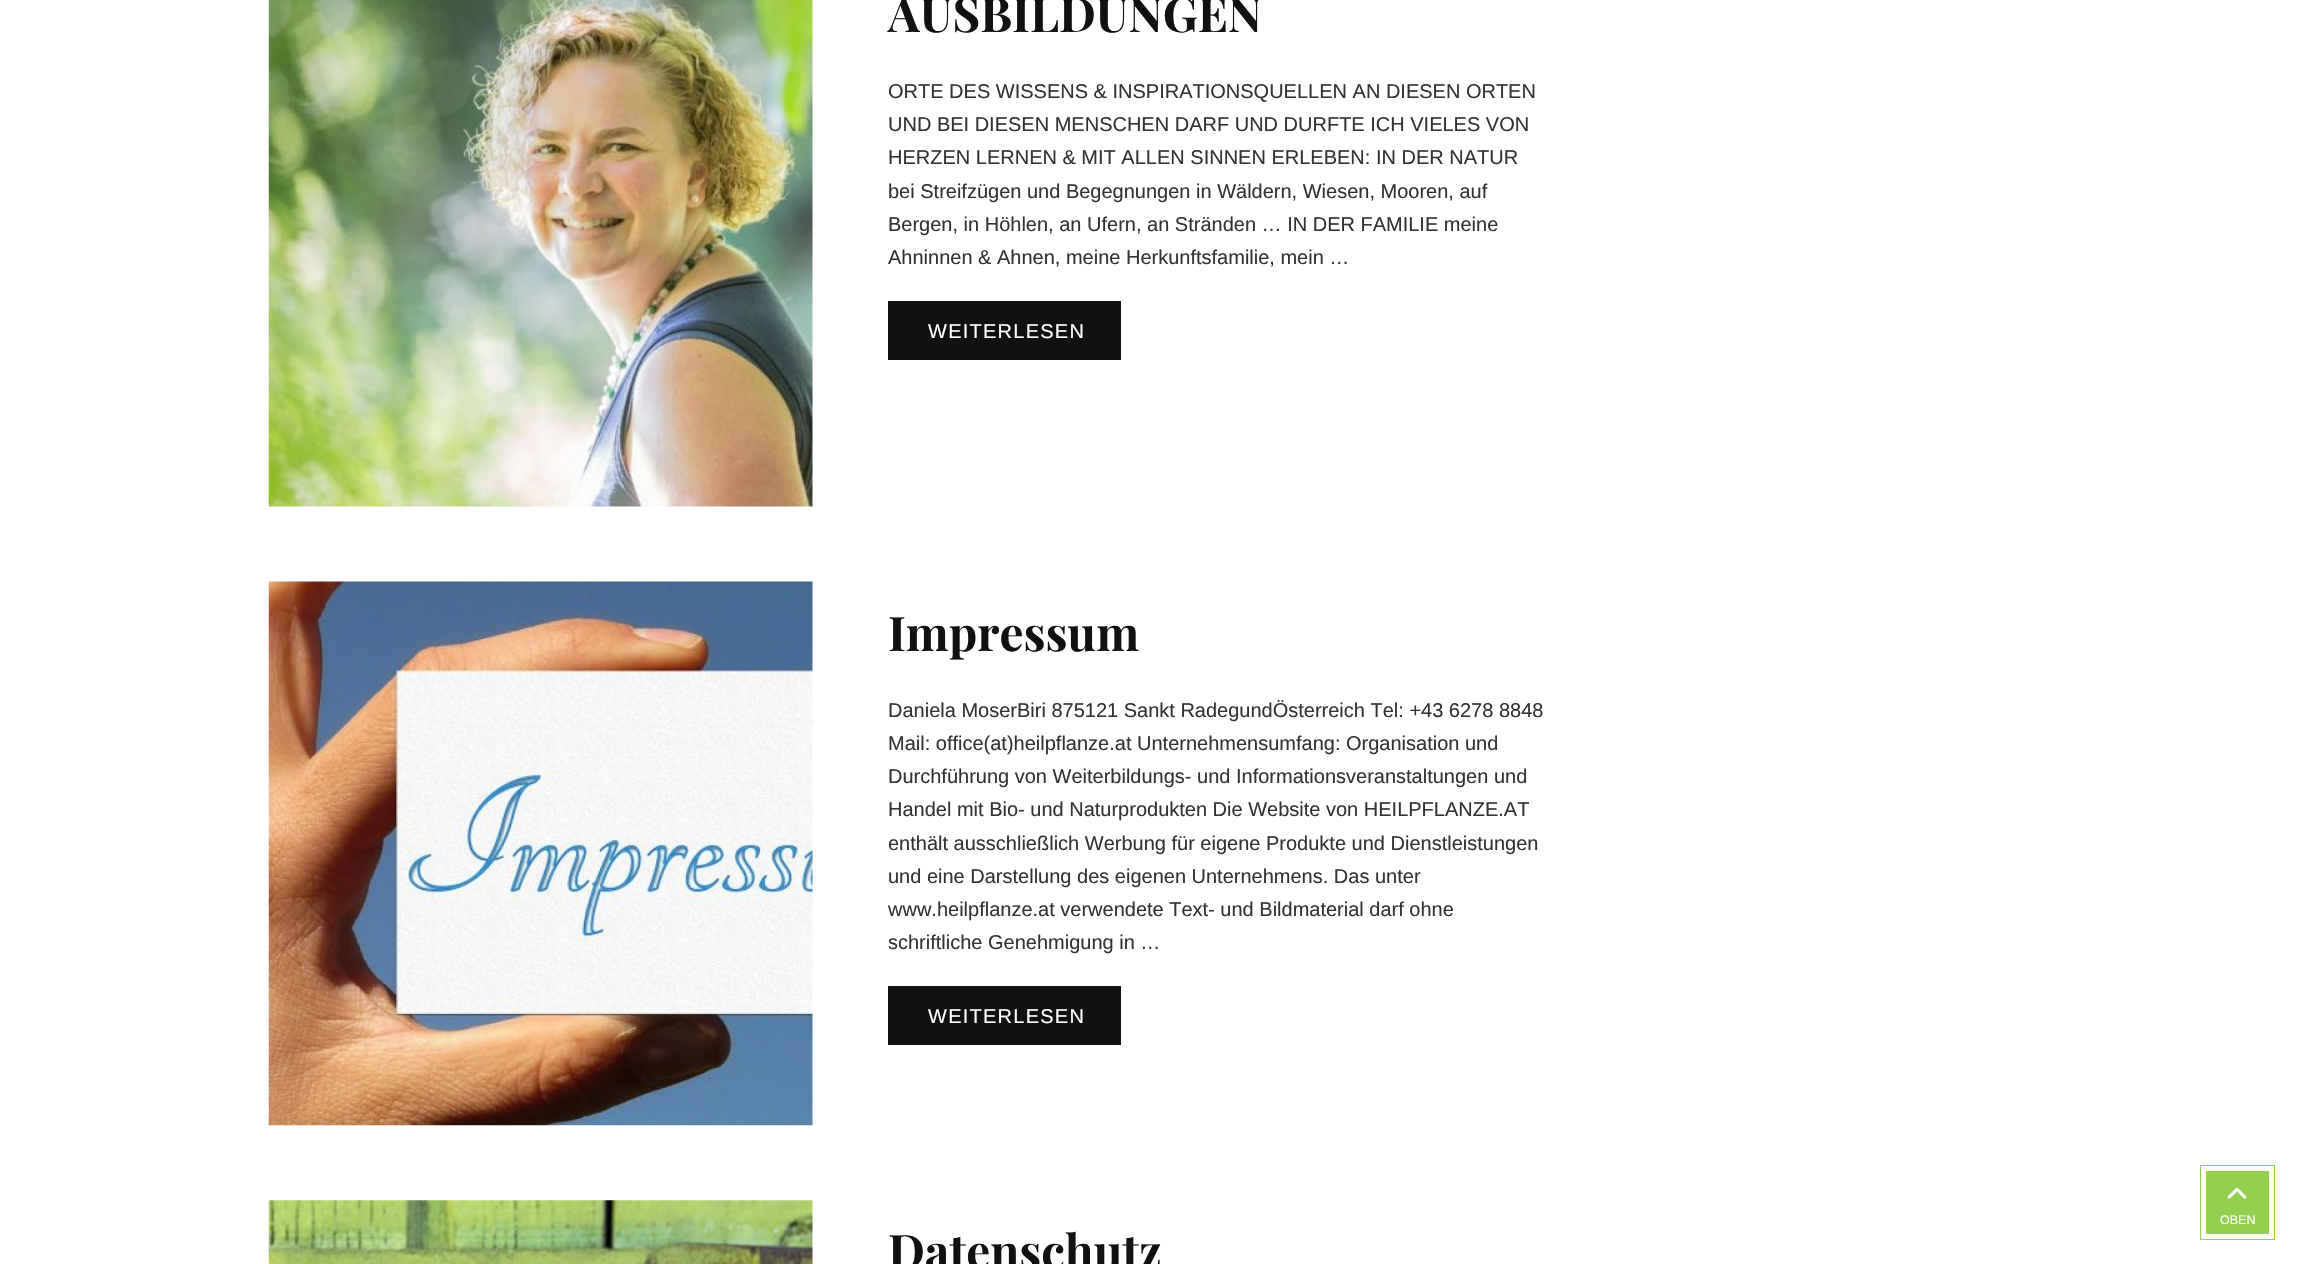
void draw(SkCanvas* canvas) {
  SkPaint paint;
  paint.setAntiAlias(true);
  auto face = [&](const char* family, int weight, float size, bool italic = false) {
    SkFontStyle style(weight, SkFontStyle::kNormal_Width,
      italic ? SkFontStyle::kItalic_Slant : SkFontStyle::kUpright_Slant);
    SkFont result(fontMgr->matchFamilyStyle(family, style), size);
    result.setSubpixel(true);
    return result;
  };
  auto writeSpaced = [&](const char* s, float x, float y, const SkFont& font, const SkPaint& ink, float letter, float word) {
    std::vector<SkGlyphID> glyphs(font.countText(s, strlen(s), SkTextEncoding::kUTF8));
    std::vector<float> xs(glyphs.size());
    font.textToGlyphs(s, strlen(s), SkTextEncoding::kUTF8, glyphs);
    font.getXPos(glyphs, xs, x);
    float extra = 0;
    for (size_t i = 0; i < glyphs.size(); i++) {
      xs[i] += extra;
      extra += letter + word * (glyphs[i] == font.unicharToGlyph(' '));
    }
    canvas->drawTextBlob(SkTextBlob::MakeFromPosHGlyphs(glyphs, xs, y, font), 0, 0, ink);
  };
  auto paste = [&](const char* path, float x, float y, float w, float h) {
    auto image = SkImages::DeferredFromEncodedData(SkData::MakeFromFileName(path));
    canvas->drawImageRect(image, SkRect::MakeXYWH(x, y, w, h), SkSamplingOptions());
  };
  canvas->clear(0xffffffff);
  paste("img/1.png", 268, 0, 545, 507);
  paint.setColor(0xff111111);
  canvas->drawRect(SkRect::MakeXYWH(888, 301, 233, 59), paint);
  paste("img/2.png", 268, 581, 545, 545);
  canvas->drawRect(SkRect::MakeXYWH(888, 986, 233, 59), paint);
  paste("img/3.png", 268, 1200, 545, 64);
  paint.setColor(0xff92d050);
  canvas->drawRect(SkRect::MakeXYWH(2200, 1165, 75, 75), paint);
  paste("img/4.png", 2227, 1187, 20, 12);
  paint.setStroke(true);
  paint.setStrokeWidth(5);
  paint.setColor(0xffffffff);
  canvas->drawRect(SkRect::MakeXYWH(2203.5f, 1168.5f, 68, 68), paint);
  auto f0 = face("Playfair Display", 700, 47.5f);
  paint.setStroke(false);
  paint.setColor(0xff111111);
  canvas->drawString("AUSBILDUNGEN", 888, 32, f0, paint);
  auto f1 = face("Liberation Sans", 400, 20);
  paint.setColor(0xff333333);
  {
    const struct { const char* s; float x, y; } items[] = {
      {"ORTE DES WISSENS & INSPIRATIONSQUELLEN AN DIESEN ORTEN", 888, 98},
      {"UND BEI DIESEN MENSCHEN DARF UND DURFTE ICH VIELES VON", 888, 131},
      {"HERZEN LERNEN & MIT ALLEN SINNEN ERLEBEN: IN DER NATUR", 888, 164},
      {"bei Streifzügen und Begegnungen in Wäldern, Wiesen, Mooren, auf", 888, 198},
      {"Bergen, in Höhlen, an Ufern, an Stränden … IN DER FAMILIE meine", 888, 231},
      {"Ahninnen & Ahnen, meine Herkunftsfamilie, mein …", 888, 264},
    };
    for (auto [s, x, y] : items) {
      canvas->drawString(s, x, y, f1, paint);
    }
  }
  paint.setColor(0xffffffff);
  writeSpaced("WEITERLESEN", 928, 338, f1, paint, 1.25f, 0);
  paint.setColor(0xff111111);
  canvas->drawString("Impressum", 888, 651, f0, paint);
  paint.setColor(0xff333333);
  {
    const struct { const char* s; float x, y; } items[] = {
      {"Daniela MoserBiri 875121 Sankt RadegundÖsterreich Tel: +43 6278 8848", 888, 717},
      {"Mail: office(at)heilpflanze.at Unternehmensumfang: Organisation und", 888, 750},
      {"Durchführung von Weiterbildungs- und Informationsveranstaltungen und", 888, 783},
      {"Handel mit Bio- und Naturprodukten Die Website von HEILPFLANZE.AT", 888, 816},
      {"enthält ausschließlich Werbung für eigene Produkte und Dienstleistungen", 888, 850},
      {"und eine Darstellung des eigenen Unternehmens. Das unter", 888, 883},
      {"www.heilpflanze.at verwendete Text- und Bildmaterial darf ohne", 888, 916},
      {"schriftliche Genehmigung in …", 888, 949},
    };
    for (auto [s, x, y] : items) {
      canvas->drawString(s, x, y, f1, paint);
    }
  }
  paint.setColor(0xffffffff);
  writeSpaced("WEITERLESEN", 928, 1023, f1, paint, 1.25f, 0);
  paint.setColor(0xff111111);
  canvas->drawString("Datenschutz", 888, 1269, f0, paint);
  auto f2 = face("Liberation Sans", 400, 12.5f);
  paint.setColor(0xffffffff);
  canvas->drawString("OBEN", 2220, 1224, f2, paint);
}
